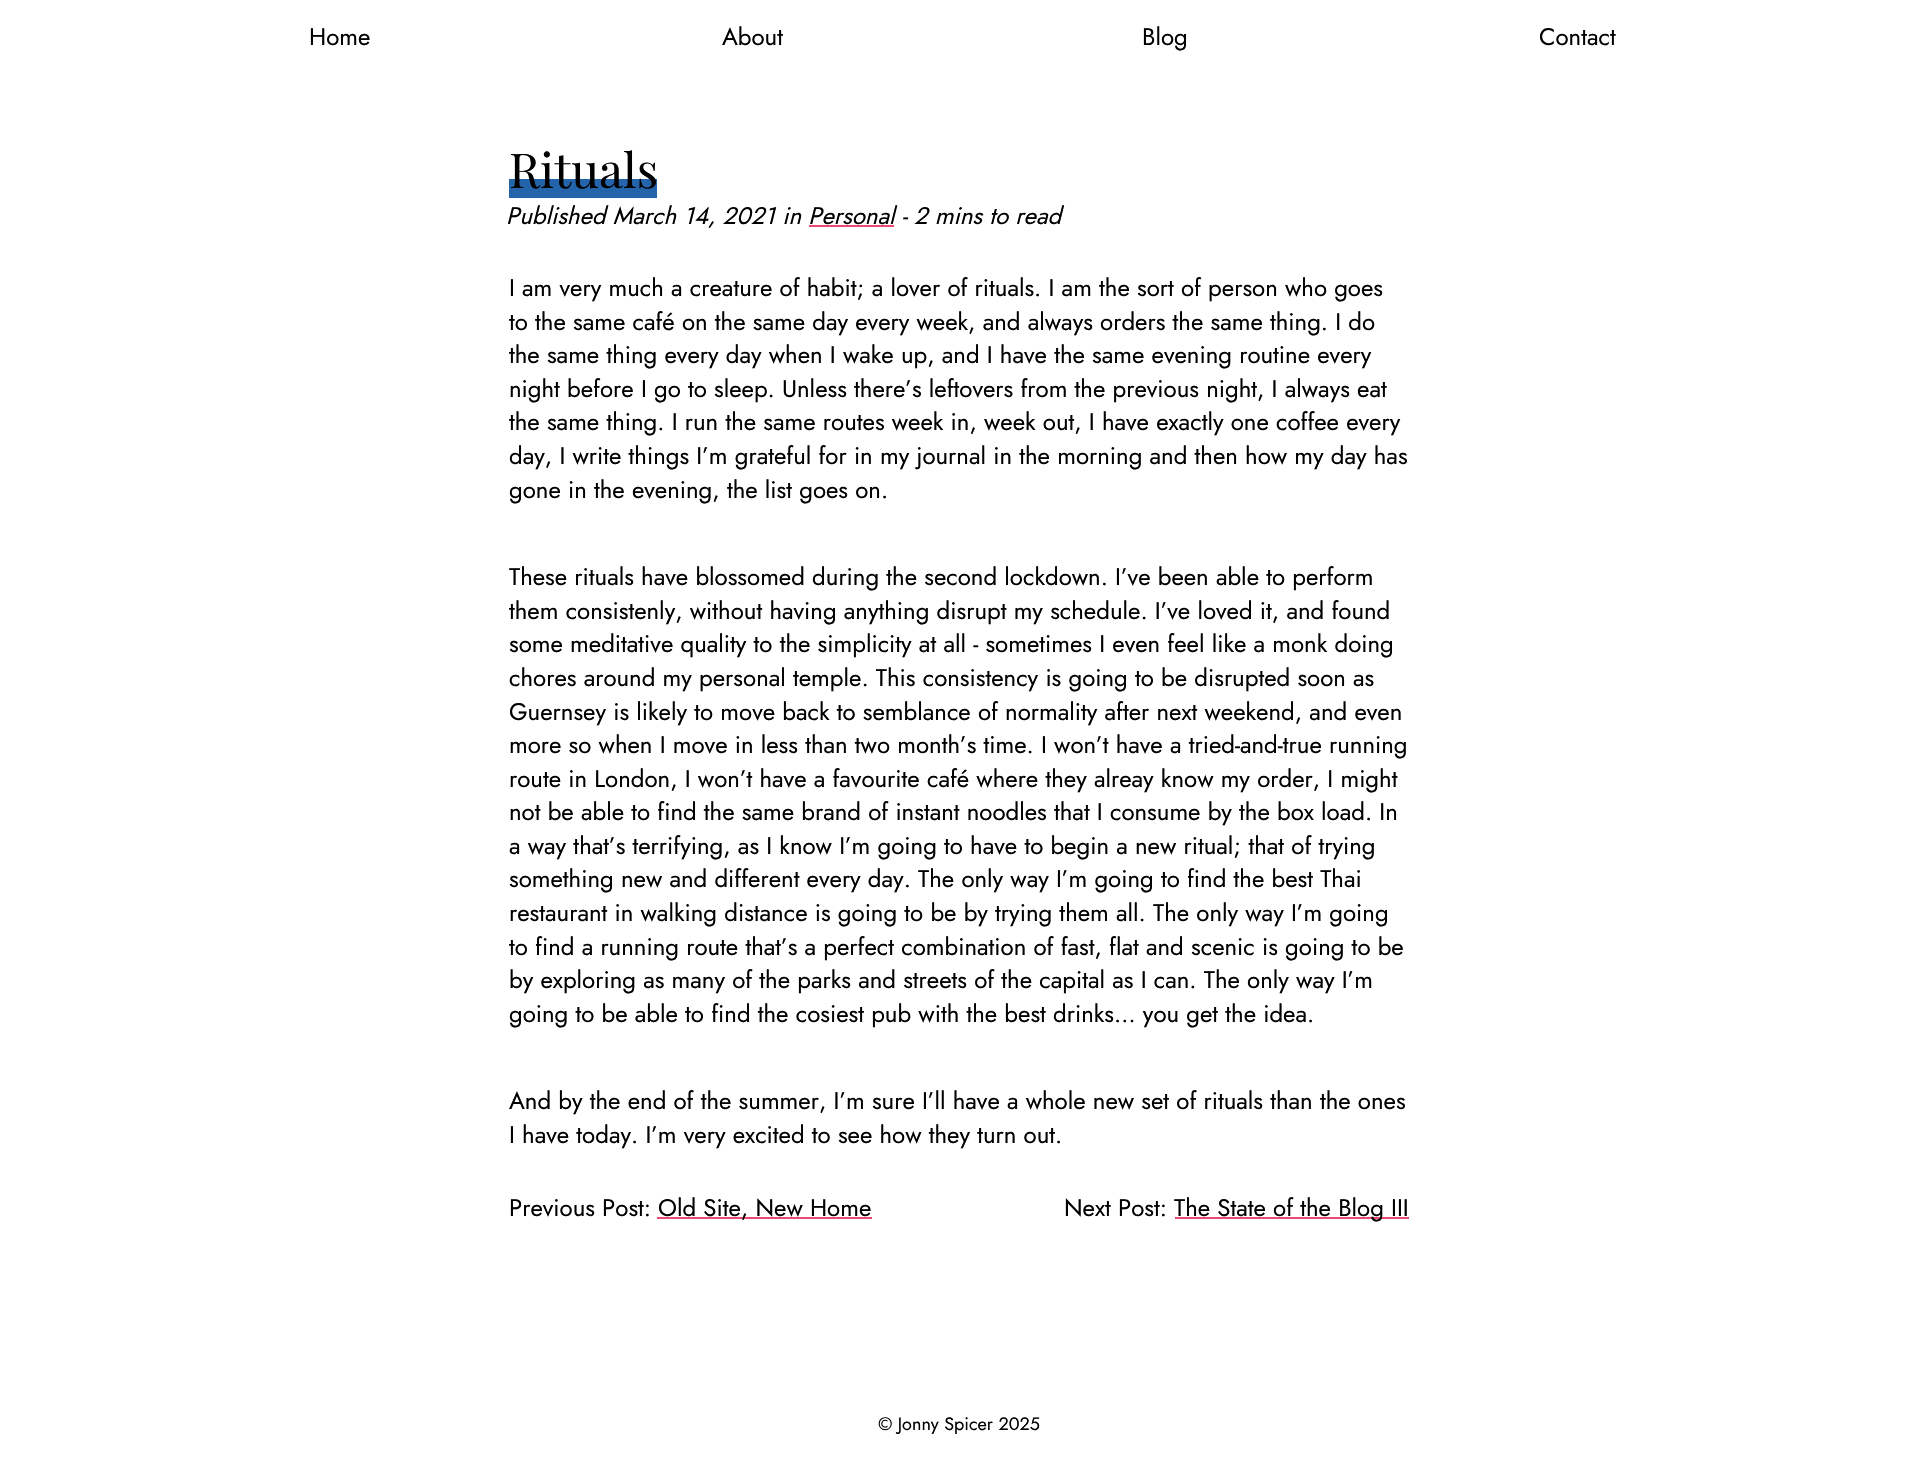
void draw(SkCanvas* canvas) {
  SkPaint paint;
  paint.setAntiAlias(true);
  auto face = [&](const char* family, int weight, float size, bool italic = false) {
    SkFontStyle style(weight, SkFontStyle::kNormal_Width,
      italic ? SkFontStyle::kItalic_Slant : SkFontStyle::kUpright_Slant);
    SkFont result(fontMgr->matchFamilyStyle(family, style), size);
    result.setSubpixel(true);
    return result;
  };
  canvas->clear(0xffffffff);
  {
    const struct { float x, y, w, h; SkColor color; } items[] = {
      {509, 179, 148, 19, 0xff2364aa},
      {657, 1217, 215, 2, 0xffef476f},
      {1175, 1217, 234, 2, 0xffef476f},
    };
    for (auto [x, y, w, h, color] : items) {
      paint.setColor(color);
      canvas->drawRect(SkRect::MakeXYWH(x, y, w, h), paint);
    }
  }
  auto f0 = face("Jost", 400, 24);
  paint.setColor(0xff000000);
  {
    const struct { const char* s; float x, y; } items[] = {
      {"Home", 309, 45},
      {"About", 722, 45},
      {"Blog", 1142, 45},
      {"Contact", 1539, 45},
    };
    for (auto [s, x, y] : items) {
      canvas->drawString(s, x, y, f0, paint);
    }
  }
  auto f1 = face("Playfair Display", 400, 48);
  canvas->drawString("Rituals", 509, 188, f1, paint);
  auto f2 = face("Jost", 400, 24, true);
  canvas->drawString("Published March 14, 2021 in Personal - 2 mins to read", 506, 224, f2, paint);
  paint.setColor(0xffef476f);
  canvas->drawRect(SkRect::MakeXYWH(809, 225, 85, 2), paint);
  paint.setColor(0xff000000);
  {
    const struct { const char* s; float x, y; } items[] = {
      {"I am very much a creature of habit; a lover of rituals. I am the sort of person who goes", 509, 296},
      {"to the same café on the same day every week, and always orders the same thing. I do", 509, 330},
      {"the same thing every day when I wake up, and I have the same evening routine every", 509, 363},
      {"night before I go to sleep. Unless there’s leftovers from the previous night, I always eat", 509, 397},
      {"the same thing. I run the same routes week in, week out, I have exactly one coffee every", 509, 430},
      {"day, I write things I’m grateful for in my journal in the morning and then how my day has", 509, 464},
      {"gone in the evening, the list goes on.", 509, 498},
      {"These rituals have blossomed during the second lockdown. I’ve been able to perform", 509, 585},
      {"them consistenly, without having anything disrupt my schedule. I’ve loved it, and found", 509, 619},
      {"some meditative quality to the simplicity at all - sometimes I even feel like a monk doing", 509, 652},
      {"chores around my personal temple. This consistency is going to be disrupted soon as", 509, 686},
      {"Guernsey is likely to move back to semblance of normality after next weekend, and even", 509, 720},
      {"more so when I move in less than two month’s time. I won’t have a tried-and-true running", 509, 753},
      {"route in London, I won’t have a favourite café where they alreay know my order, I might", 509, 787},
      {"not be able to find the same brand of instant noodles that I consume by the box load. In", 509, 820},
      {"a way that’s terrifying, as I know I’m going to have to begin a new ritual; that of trying", 509, 854},
      {"something new and different every day. The only way I’m going to find the best Thai", 509, 887},
      {"restaurant in walking distance is going to be by trying them all. The only way I’m going", 509, 921},
      {"to find a running route that’s a perfect combination of fast, flat and scenic is going to be", 509, 955},
      {"by exploring as many of the parks and streets of the capital as I can. The only way I’m", 509, 988},
      {"going to be able to find the cosiest pub with the best drinks… you get the idea.", 509, 1022},
      {"And by the end of the summer, I’m sure I’ll have a whole new set of rituals than the ones", 509, 1109},
      {"I have today. I’m very excited to see how they turn out.", 509, 1143},
      {"Previous Post:", 509, 1216},
      {"Old Site, New Home", 658, 1216},
      {"Next Post:", 1064, 1216},
      {"The State of the Blog III", 1174, 1216},
    };
    for (auto [s, x, y] : items) {
      canvas->drawString(s, x, y, f0, paint);
    }
  }
  auto f3 = face("Jost", 400, 18);
  canvas->drawString("© Jonny Spicer 2025", 878, 1430, f3, paint);
}
